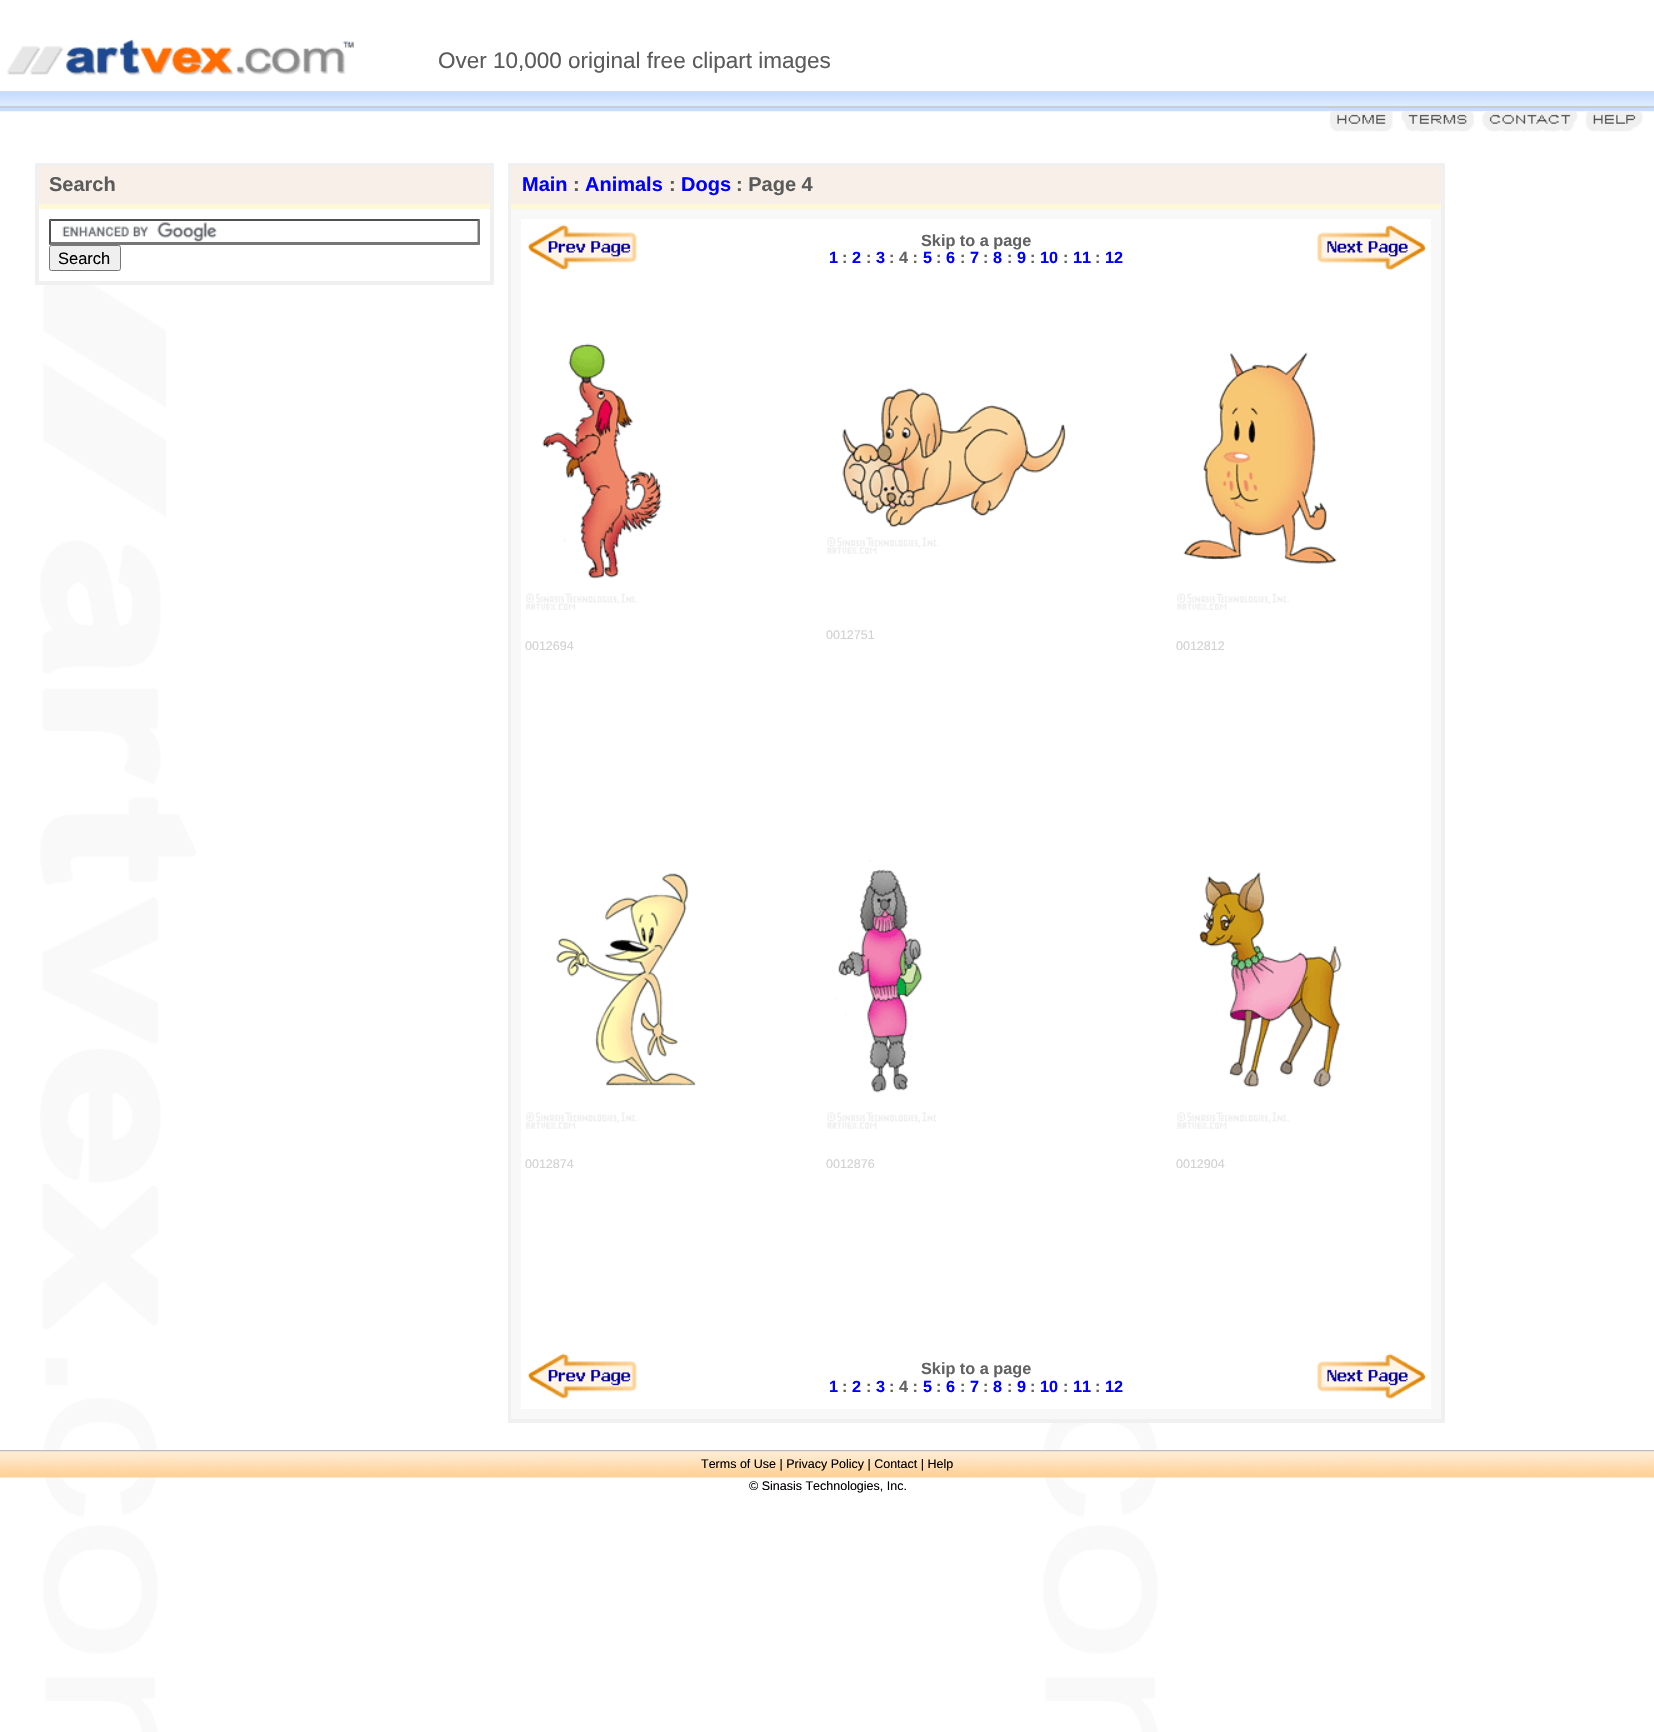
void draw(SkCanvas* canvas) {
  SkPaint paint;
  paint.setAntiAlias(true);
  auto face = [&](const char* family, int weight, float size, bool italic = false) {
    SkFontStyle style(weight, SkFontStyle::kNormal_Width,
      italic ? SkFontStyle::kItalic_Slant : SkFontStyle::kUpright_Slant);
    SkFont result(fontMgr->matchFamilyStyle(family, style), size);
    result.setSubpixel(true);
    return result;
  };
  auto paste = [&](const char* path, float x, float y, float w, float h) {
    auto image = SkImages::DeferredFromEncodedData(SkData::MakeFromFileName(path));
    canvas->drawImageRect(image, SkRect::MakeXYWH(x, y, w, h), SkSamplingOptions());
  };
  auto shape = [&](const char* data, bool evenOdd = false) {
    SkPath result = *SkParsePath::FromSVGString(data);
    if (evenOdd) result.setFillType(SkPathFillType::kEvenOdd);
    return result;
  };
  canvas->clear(0xffffffff);
  paste("img/1.png", 40, 255, 1156, 1477);
  paste("img/2.png", 6, 39, 348, 37);
  paste("img/3.png", 0, 91, 1654, 21);
  paste("img/4.png", 1330, 111, 63, 21);
  paste("img/5.png", 1401, 111, 73, 21);
  paste("img/6.png", 1482, 111, 96, 21);
  paste("img/7.png", 1586, 111, 57, 21);
  {
    const struct { float x, y, w, h; SkColor color; } items[] = {
      {35, 163, 459, 122, 0xfff0f0f0},
      {39, 166, 451, 38, 0xfff7efe8},
      {39, 204, 451, 5, 0xfffff7d6},
      {39, 209, 451, 72, 0xffffffff},
    };
    for (auto [x, y, w, h, color] : items) {
      paint.setColor(color);
      canvas->drawRect(SkRect::MakeXYWH(x, y, w, h), paint);
    }
  }
  paste("img/8.png", 62, 222, 155, 20);
  paint.setColor(0xff4f4f4f);
  canvas->drawPath(shape("M49 219H480L478 221H51Z"), paint);
  paint.setColor(0xff767676);
  canvas->drawPath(shape("M480 219V245L477.5 242.5V221Z"), paint);
  canvas->drawPath(shape("M480 245H49L51 242H478Z"), paint);
  paint.setColor(0xff4f4f4f);
  canvas->drawPath(shape("M49 245V219L51 221V242.5Z"), paint);
  paint.setColor(0xffefefef);
  canvas->drawRoundRect(SkRect::MakeXYWH(49.5f, 245.5f, 71, 25), 2, 2, paint);
  paint.setStroke(true);
  paint.setStrokeWidth(1);
  paint.setColor(0xff767676);
  canvas->drawRoundRect(SkRect::MakeXYWH(49.5f, 245.5f, 71, 25), 2, 2, paint);
  paint.setStroke(false);
  {
    const struct { float x, y, w, h; SkColor color; } items[] = {
      {508, 163, 937, 1260, 0xfff0f0f0},
      {511, 166, 930, 38, 0xfff7efe8},
      {511, 204, 930, 5, 0xfffff7d6},
      {511, 209, 930, 1210, 0xfff8f8f8},
      {521, 219, 910, 91, 0xffffffff},
    };
    for (auto [x, y, w, h, color] : items) {
      paint.setColor(color);
      canvas->drawRect(SkRect::MakeXYWH(x, y, w, h), paint);
    }
  }
  paste("img/9.png", 528, 224, 109, 47);
  paste("img/10.png", 1317, 225, 109, 46);
  canvas->drawRect(SkRect::MakeXYWH(521, 310, 910, 519), paint);
  paste("img/11.png", 827, 388, 239, 166);
  paste("img/12.png", 526, 340, 136, 270);
  paste("img/13.png", 1177, 352, 160, 258);
  canvas->drawRect(SkRect::MakeXYWH(521, 829, 910, 519), paint);
  paste("img/14.png", 526, 873, 170, 256);
  paste("img/15.png", 827, 860, 110, 269);
  paste("img/16.png", 1177, 872, 165, 257);
  canvas->drawRect(SkRect::MakeXYWH(521, 1348, 910, 61), paint);
  paste("img/17.png", 528, 1353, 109, 46);
  paste("img/18.png", 1317, 1353, 109, 46);
  paste("img/19.png", 0, 1450, 1654, 28);
  auto f0 = face("Liberation Sans", 400, 22.5f);
  paint.setColor(0xff5b5b5b);
  canvas->drawString("Over 10,000 original free clipart images", 438, 68, f0, paint);
  auto f1 = face("Liberation Sans", 700, 20);
  canvas->drawString("Search", 49, 191, f1, paint);
  auto f2 = face("Liberation Sans", 400, 16.5f);
  paint.setColor(0xff000000);
  canvas->drawString("Search", 58, 264, f2, paint);
  paint.setColor(0xff0000ff);
  canvas->drawString("Main", 522, 191, f1, paint);
  paint.setColor(0xff5b5b5b);
  canvas->drawString(":", 573, 191, f1, paint);
  paint.setColor(0xff0000ff);
  canvas->drawString("Animals", 585, 191, f1, paint);
  paint.setColor(0xff5b5b5b);
  canvas->drawString(":", 669, 191, f1, paint);
  paint.setColor(0xff0000ff);
  canvas->drawString("Dogs", 681, 191, f1, paint);
  paint.setColor(0xff5b5b5b);
  canvas->drawString(": Page 4", 736, 191, f1, paint);
  auto f3 = face("Liberation Sans", 700, 16.25f);
  paint.setColor(0xff626262);
  canvas->drawString("Skip to a page", 921, 246, f3, paint);
  paint.setColor(0xff0000ff);
  canvas->drawString("1", 829, 263, f3, paint);
  paint.setColor(0xff626262);
  canvas->drawString(":", 842, 263, f3, paint);
  paint.setColor(0xff0000ff);
  canvas->drawString("2", 852, 263, f3, paint);
  paint.setColor(0xff626262);
  canvas->drawString(":", 866, 263, f3, paint);
  paint.setColor(0xff0000ff);
  canvas->drawString("3", 876, 263, f3, paint);
  paint.setColor(0xff626262);
  canvas->drawString(": 4 :", 889, 263, f3, paint);
  paint.setColor(0xff0000ff);
  canvas->drawString("5", 923, 263, f3, paint);
  paint.setColor(0xff626262);
  canvas->drawString(":", 936, 263, f3, paint);
  paint.setColor(0xff0000ff);
  canvas->drawString("6", 946, 263, f3, paint);
  paint.setColor(0xff626262);
  canvas->drawString(":", 960, 263, f3, paint);
  paint.setColor(0xff0000ff);
  canvas->drawString("7", 970, 263, f3, paint);
  paint.setColor(0xff626262);
  canvas->drawString(":", 983, 263, f3, paint);
  paint.setColor(0xff0000ff);
  canvas->drawString("8", 993, 263, f3, paint);
  paint.setColor(0xff626262);
  canvas->drawString(":", 1007, 263, f3, paint);
  paint.setColor(0xff0000ff);
  canvas->drawString("9", 1017, 263, f3, paint);
  paint.setColor(0xff626262);
  canvas->drawString(":", 1030, 263, f3, paint);
  paint.setColor(0xff0000ff);
  canvas->drawString("10", 1040, 263, f3, paint);
  paint.setColor(0xff626262);
  canvas->drawString(":", 1063, 263, f3, paint);
  paint.setColor(0xff0000ff);
  canvas->drawString("11", 1073, 263, f3, paint);
  paint.setColor(0xff626262);
  canvas->drawString(":", 1095, 263, f3, paint);
  paint.setColor(0xff0000ff);
  canvas->drawString("12", 1105, 263, f3, paint);
  auto f4 = face("Liberation Sans", 400, 12.5f);
  paint.setColor(0xffd1d1d1);
  {
    const struct { const char* s; float x, y; } items[] = {
      {"0012751", 826, 639},
      {"0012694", 525, 650},
      {"0012812", 1176, 650},
      {"0012874", 525, 1168},
      {"0012876", 826, 1168},
      {"0012904", 1176, 1168},
    };
    for (auto [s, x, y] : items) {
      canvas->drawString(s, x, y, f4, paint);
    }
  }
  paint.setColor(0xff626262);
  canvas->drawString("Skip to a page", 921, 1374, f3, paint);
  paint.setColor(0xff0000ff);
  canvas->drawString("1", 829, 1392, f3, paint);
  paint.setColor(0xff626262);
  canvas->drawString(":", 842, 1392, f3, paint);
  paint.setColor(0xff0000ff);
  canvas->drawString("2", 852, 1392, f3, paint);
  paint.setColor(0xff626262);
  canvas->drawString(":", 866, 1392, f3, paint);
  paint.setColor(0xff0000ff);
  canvas->drawString("3", 876, 1392, f3, paint);
  paint.setColor(0xff626262);
  canvas->drawString(": 4 :", 889, 1392, f3, paint);
  paint.setColor(0xff0000ff);
  canvas->drawString("5", 923, 1392, f3, paint);
  paint.setColor(0xff626262);
  canvas->drawString(":", 936, 1392, f3, paint);
  paint.setColor(0xff0000ff);
  canvas->drawString("6", 946, 1392, f3, paint);
  paint.setColor(0xff626262);
  canvas->drawString(":", 960, 1392, f3, paint);
  paint.setColor(0xff0000ff);
  canvas->drawString("7", 970, 1392, f3, paint);
  paint.setColor(0xff626262);
  canvas->drawString(":", 983, 1392, f3, paint);
  paint.setColor(0xff0000ff);
  canvas->drawString("8", 993, 1392, f3, paint);
  paint.setColor(0xff626262);
  canvas->drawString(":", 1007, 1392, f3, paint);
  paint.setColor(0xff0000ff);
  canvas->drawString("9", 1017, 1392, f3, paint);
  paint.setColor(0xff626262);
  canvas->drawString(":", 1030, 1392, f3, paint);
  paint.setColor(0xff0000ff);
  canvas->drawString("10", 1040, 1392, f3, paint);
  paint.setColor(0xff626262);
  canvas->drawString(":", 1063, 1392, f3, paint);
  paint.setColor(0xff0000ff);
  canvas->drawString("11", 1073, 1392, f3, paint);
  paint.setColor(0xff626262);
  canvas->drawString(":", 1095, 1392, f3, paint);
  paint.setColor(0xff0000ff);
  canvas->drawString("12", 1105, 1392, f3, paint);
  paint.setColor(0xff000000);
  canvas->drawString("Terms of Use | Privacy Policy | Contact | Help", 701, 1468, f4, paint);
  canvas->drawString("© Sinasis Technologies, Inc.", 749, 1490, f4, paint);
}
